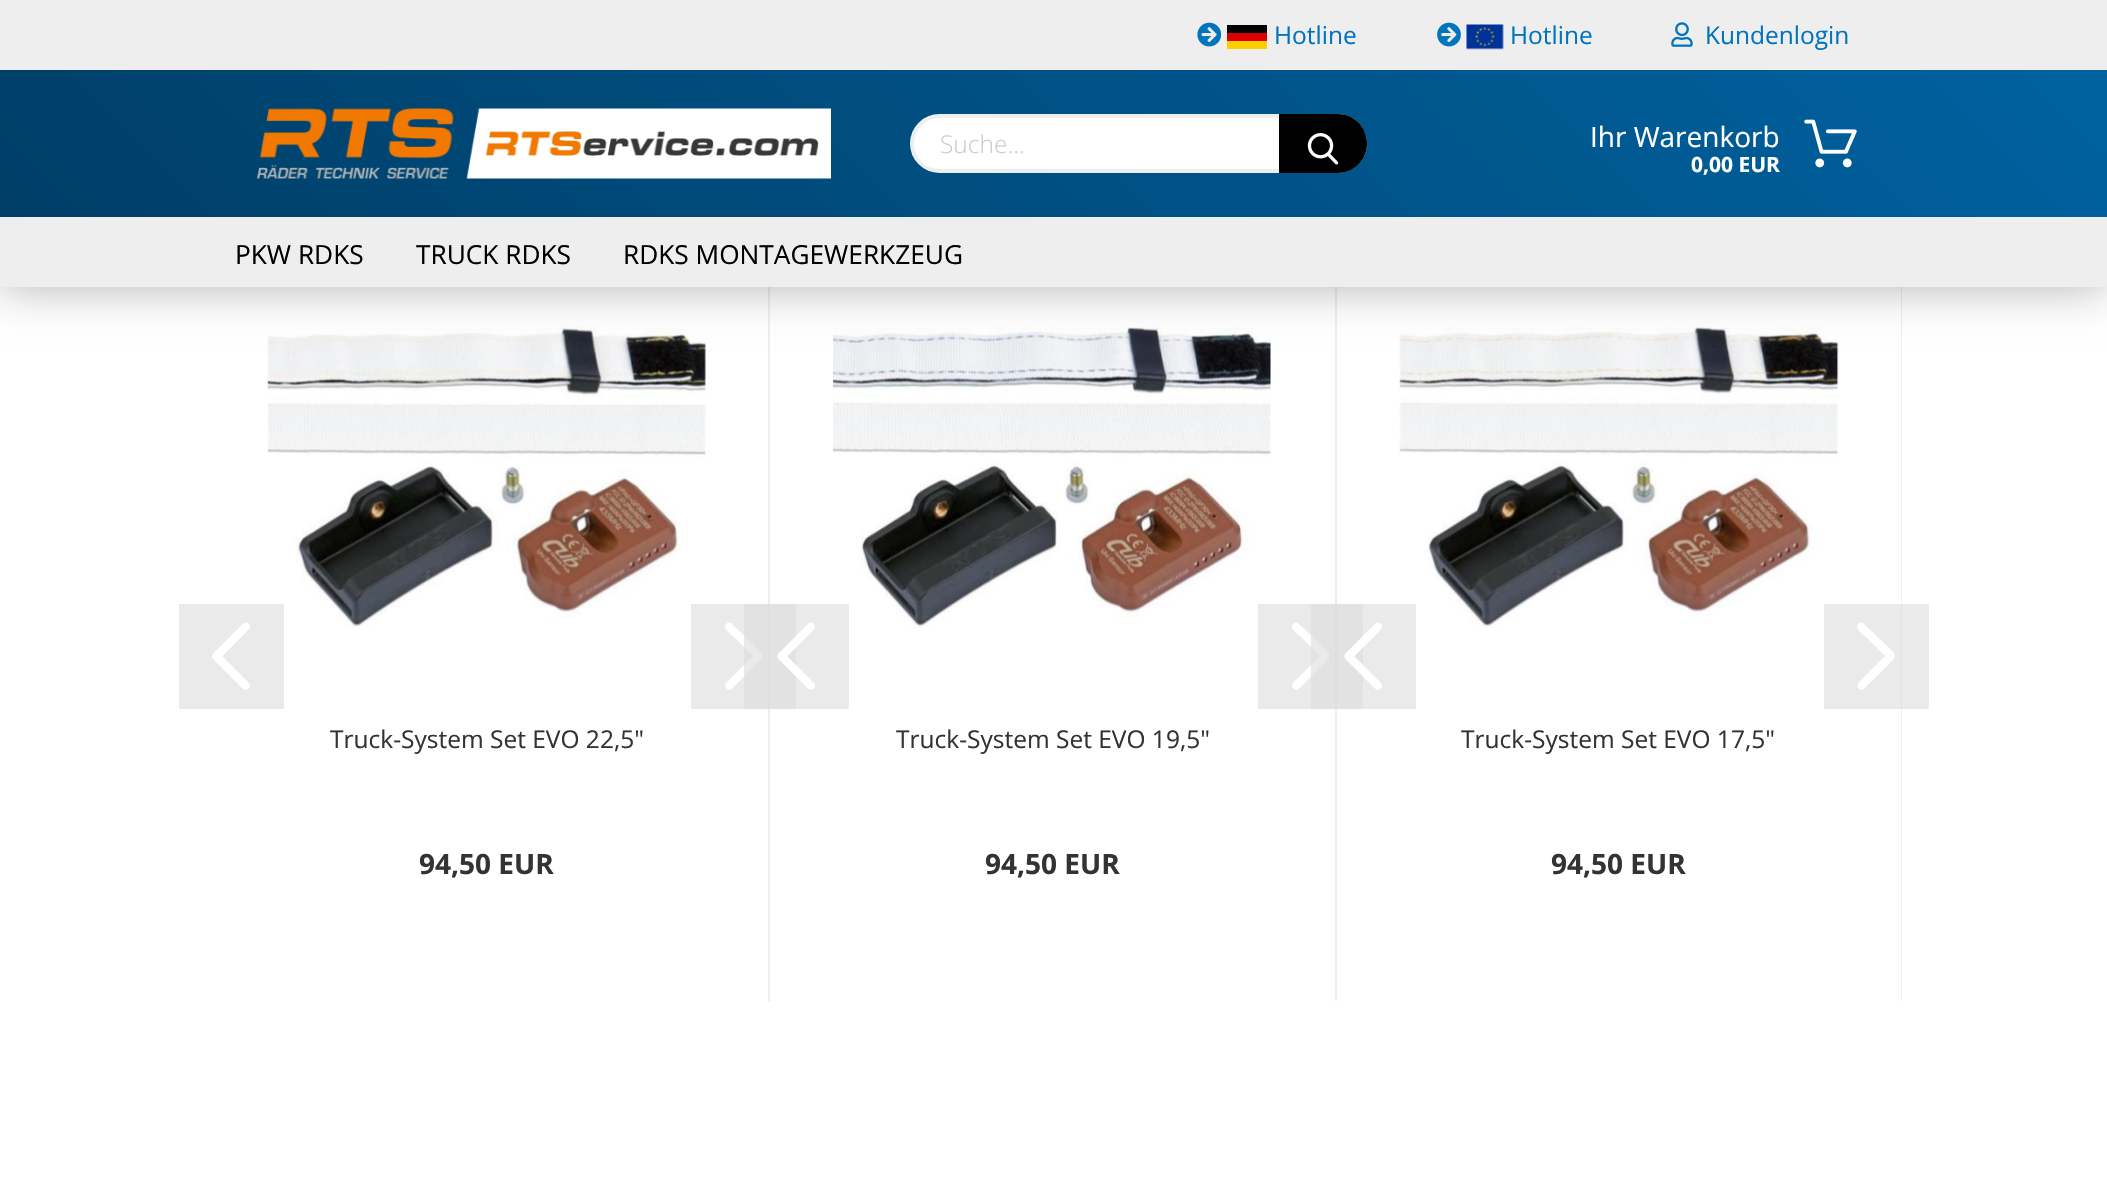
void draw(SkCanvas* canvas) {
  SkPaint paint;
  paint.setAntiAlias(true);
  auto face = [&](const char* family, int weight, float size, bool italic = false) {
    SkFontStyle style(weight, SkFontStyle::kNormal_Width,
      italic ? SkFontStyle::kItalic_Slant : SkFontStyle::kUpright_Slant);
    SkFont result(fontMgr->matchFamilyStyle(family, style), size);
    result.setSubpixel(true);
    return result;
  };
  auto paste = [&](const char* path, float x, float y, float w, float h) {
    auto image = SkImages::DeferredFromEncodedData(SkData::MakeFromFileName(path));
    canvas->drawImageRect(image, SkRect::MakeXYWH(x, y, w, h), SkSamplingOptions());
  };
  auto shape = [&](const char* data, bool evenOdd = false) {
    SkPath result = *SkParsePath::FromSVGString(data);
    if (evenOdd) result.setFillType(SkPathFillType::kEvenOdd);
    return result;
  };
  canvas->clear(0xffffffff);
  paint.setColor(0xffeeeeee);
  canvas->drawRect(SkRect::MakeXYWH(768, 287, 2, 714), paint);
  paste("img/9.png", 267, 327, 439, 300);
  canvas->drawRect(SkRect::MakeXYWH(1335, 287, 2, 714), paint);
  paste("img/11.png", 833, 327, 438, 301);
  canvas->drawRect(SkRect::MakeXYWH(1901, 287, 1, 714), paint);
  paste("img/12.png", 1399, 327, 440, 301);
  paint.setColor(0x4d000000);
  paint.setMaskFilter(SkMaskFilter::MakeBlur(kNormal_SkBlurStyle, 22));
  canvas->drawRect(SkRect::MakeXYWH(0, 0, 2107, 287), paint);
  paint.setMaskFilter(nullptr);
  {
    const SkColor colors[] = {0xff003d65, 0xff0063a2};
    const float stops[] = {0, 1};
    const SkPoint ends[] = {{455, 742}, {1652, -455}};
    paint.setShader(SkGradientShader::MakeLinear(ends, colors, stops, 2, SkTileMode::kClamp));
    paint.setAlpha(255);
  }
  canvas->drawRect(SkRect::MakeXYWH(0, 70, 2107, 147), paint);
  paint.setShader(nullptr);
  paint.setColor(0xffeeeeee);
  canvas->drawRect(SkRect::MakeXYWH(0, 0, 2107, 70), paint);
  paste("img/1.png", 1197, 22, 25, 25);
  {
    const struct { float x, y, w, h; SkColor color; } items[] = {
      {1227, 25, 40, 8, 0xff000000},
      {1227, 33, 40, 8, 0xffdd0000},
      {1227, 41, 40, 8, 0xffffce00},
    };
    for (auto [x, y, w, h, color] : items) {
      paint.setColor(color);
      canvas->drawRect(SkRect::MakeXYWH(x, y, w, h), paint);
    }
  }
  paste("img/2.png", 1437, 22, 24, 25);
  paste("img/3.png", 1466, 24, 38, 26);
  paste("img/4.png", 1671, 22, 22, 25);
  paste("img/5.png", 257, 108, 574, 71);
  paint.setColor(0xffffffff);
  canvas->drawRoundRect(SkRect::MakeXYWH(912, 116, 453, 55), 27.5f, 27.5f, paint);
  paint.setStroke(true);
  paint.setStrokeWidth(4);
  paint.setColor(0xffeeeeee);
  canvas->drawRoundRect(SkRect::MakeXYWH(912, 116, 453, 55), 27.5f, 27.5f, paint);
  paint.setStroke(false);
  paint.setColor(0xff000000);
  canvas->drawPath(shape("M1279 114H1337.5C1354 114 1367 127 1367 143.5C1367 160 1354 173 1337.5 173H1279Z"), paint);
  paste("img/6.png", 1307, 133, 32, 32);
  paste("img/7.png", 1804, 119, 53, 49);
  paint.setColor(0xffeeeeee);
  canvas->drawRect(SkRect::MakeXYWH(0, 217, 2107, 70), paint);
  paint.setColor(0xffeaeaea);
  canvas->drawRect(SkRect::MakeXYWH(179, 604, 105, 105), paint);
  paste("img/8.png", 212, 622, 38, 68);
  paint.setColor(0x99dcdcdc);
  canvas->drawRect(SkRect::MakeXYWH(691, 604, 105, 105), paint);
  paint.setColor(0xffffffff);
  canvas->drawPath(shape("M729 690C728 690 727 689 726 688C723 684 728 681 731 678L753 656L735 638C733 636 726 631 725 628C724 625 728 621 731 623L752 643C763 655 767 654 756 664L737 684C735 685 732 690 729 690Z"), paint);
  paint.setColor(0x99dcdcdc);
  canvas->drawRect(SkRect::MakeXYWH(744, 604, 105, 105), paint);
  paste("img/10.png", 777, 622, 38, 68);
  canvas->drawRect(SkRect::MakeXYWH(1258, 604, 105, 105), paint);
  paint.setColor(0xffffffff);
  canvas->drawPath(shape("M1296 690C1295 690 1294 689 1293 688C1290 684 1295 681 1298 678L1320 656L1302 638C1300 636 1293 631 1292 628C1291 625 1295 621 1298 623L1319 643C1330 655 1334 654 1323 664L1304 684C1302 685 1299 690 1296 690Z"), paint);
  paint.setColor(0x99dcdcdc);
  canvas->drawRect(SkRect::MakeXYWH(1311, 604, 105, 105), paint);
  paste("img/10.png", 1344, 622, 38, 68);
  canvas->drawRect(SkRect::MakeXYWH(1824, 604, 105, 105), paint);
  paint.setColor(0xffffffff);
  canvas->drawPath(shape("M1861 690C1860 690 1859 689 1858 688C1855 684 1861 681 1863 678L1885 656L1867 638C1865 636 1858 631 1857 628C1856 625 1860 621 1863 623L1884 643C1896 655 1899 654 1889 664L1869 684C1867 685 1865 690 1861 690Z"), paint);
  auto f0 = face("Open Sans", 400, 24.5f);
  paint.setColor(0xff0074bd);
  {
    const struct { const char* s; float x, y; } items[] = {
      {"Hotline", 1274, 44},
      {"Hotline", 1510, 44},
      {"Kundenlogin", 1705, 44},
    };
    for (auto [s, x, y] : items) {
      canvas->drawString(s, x, y, f0, paint);
    }
  }
  auto f1 = face("Open Sans", 300, 24.5f);
  paint.setColor(0xffcccccc);
  canvas->drawString("Suche...", 940, 153, f1, paint);
  auto f2 = face("Open Sans", 400, 28);
  paint.setColor(0xffffffff);
  canvas->drawString("Ihr Warenkorb", 1590, 147, f2, paint);
  auto f3 = face("Open Sans", 700, 21);
  canvas->drawString("0,00 EUR", 1691, 172, f3, paint);
  auto f4 = face("Open Sans", 400, 26.25f);
  paint.setColor(0xff000000);
  {
    const struct { const char* s; float x, y; } items[] = {
      {"PKW RDKS", 235, 264},
      {"TRUCK RDKS", 416, 264},
      {"RDKS MONTAGEWERKZEUG", 623, 264},
    };
    for (auto [s, x, y] : items) {
      canvas->drawString(s, x, y, f4, paint);
    }
  }
  paint.setColor(0xff333333);
  canvas->drawString("Truck-System Set EVO 22,5\"", 330, 748, f0, paint);
  auto f5 = face("Open Sans", 700, 28);
  canvas->drawString("94,50 EUR", 419, 874, f5, paint);
  canvas->save();
  canvas->clipRect(SkRect::MakeXYWH(896, 721, 313, 35));
  canvas->drawString("Truck-System Set EVO 19,5\"", 896, 748, f0, paint);
  canvas->restore();
  canvas->drawString("94,50 EUR", 985, 874, f5, paint);
  canvas->drawString("Truck-System Set EVO 17,5\"", 1461, 748, f0, paint);
  canvas->drawString("94,50 EUR", 1551, 874, f5, paint);
}
